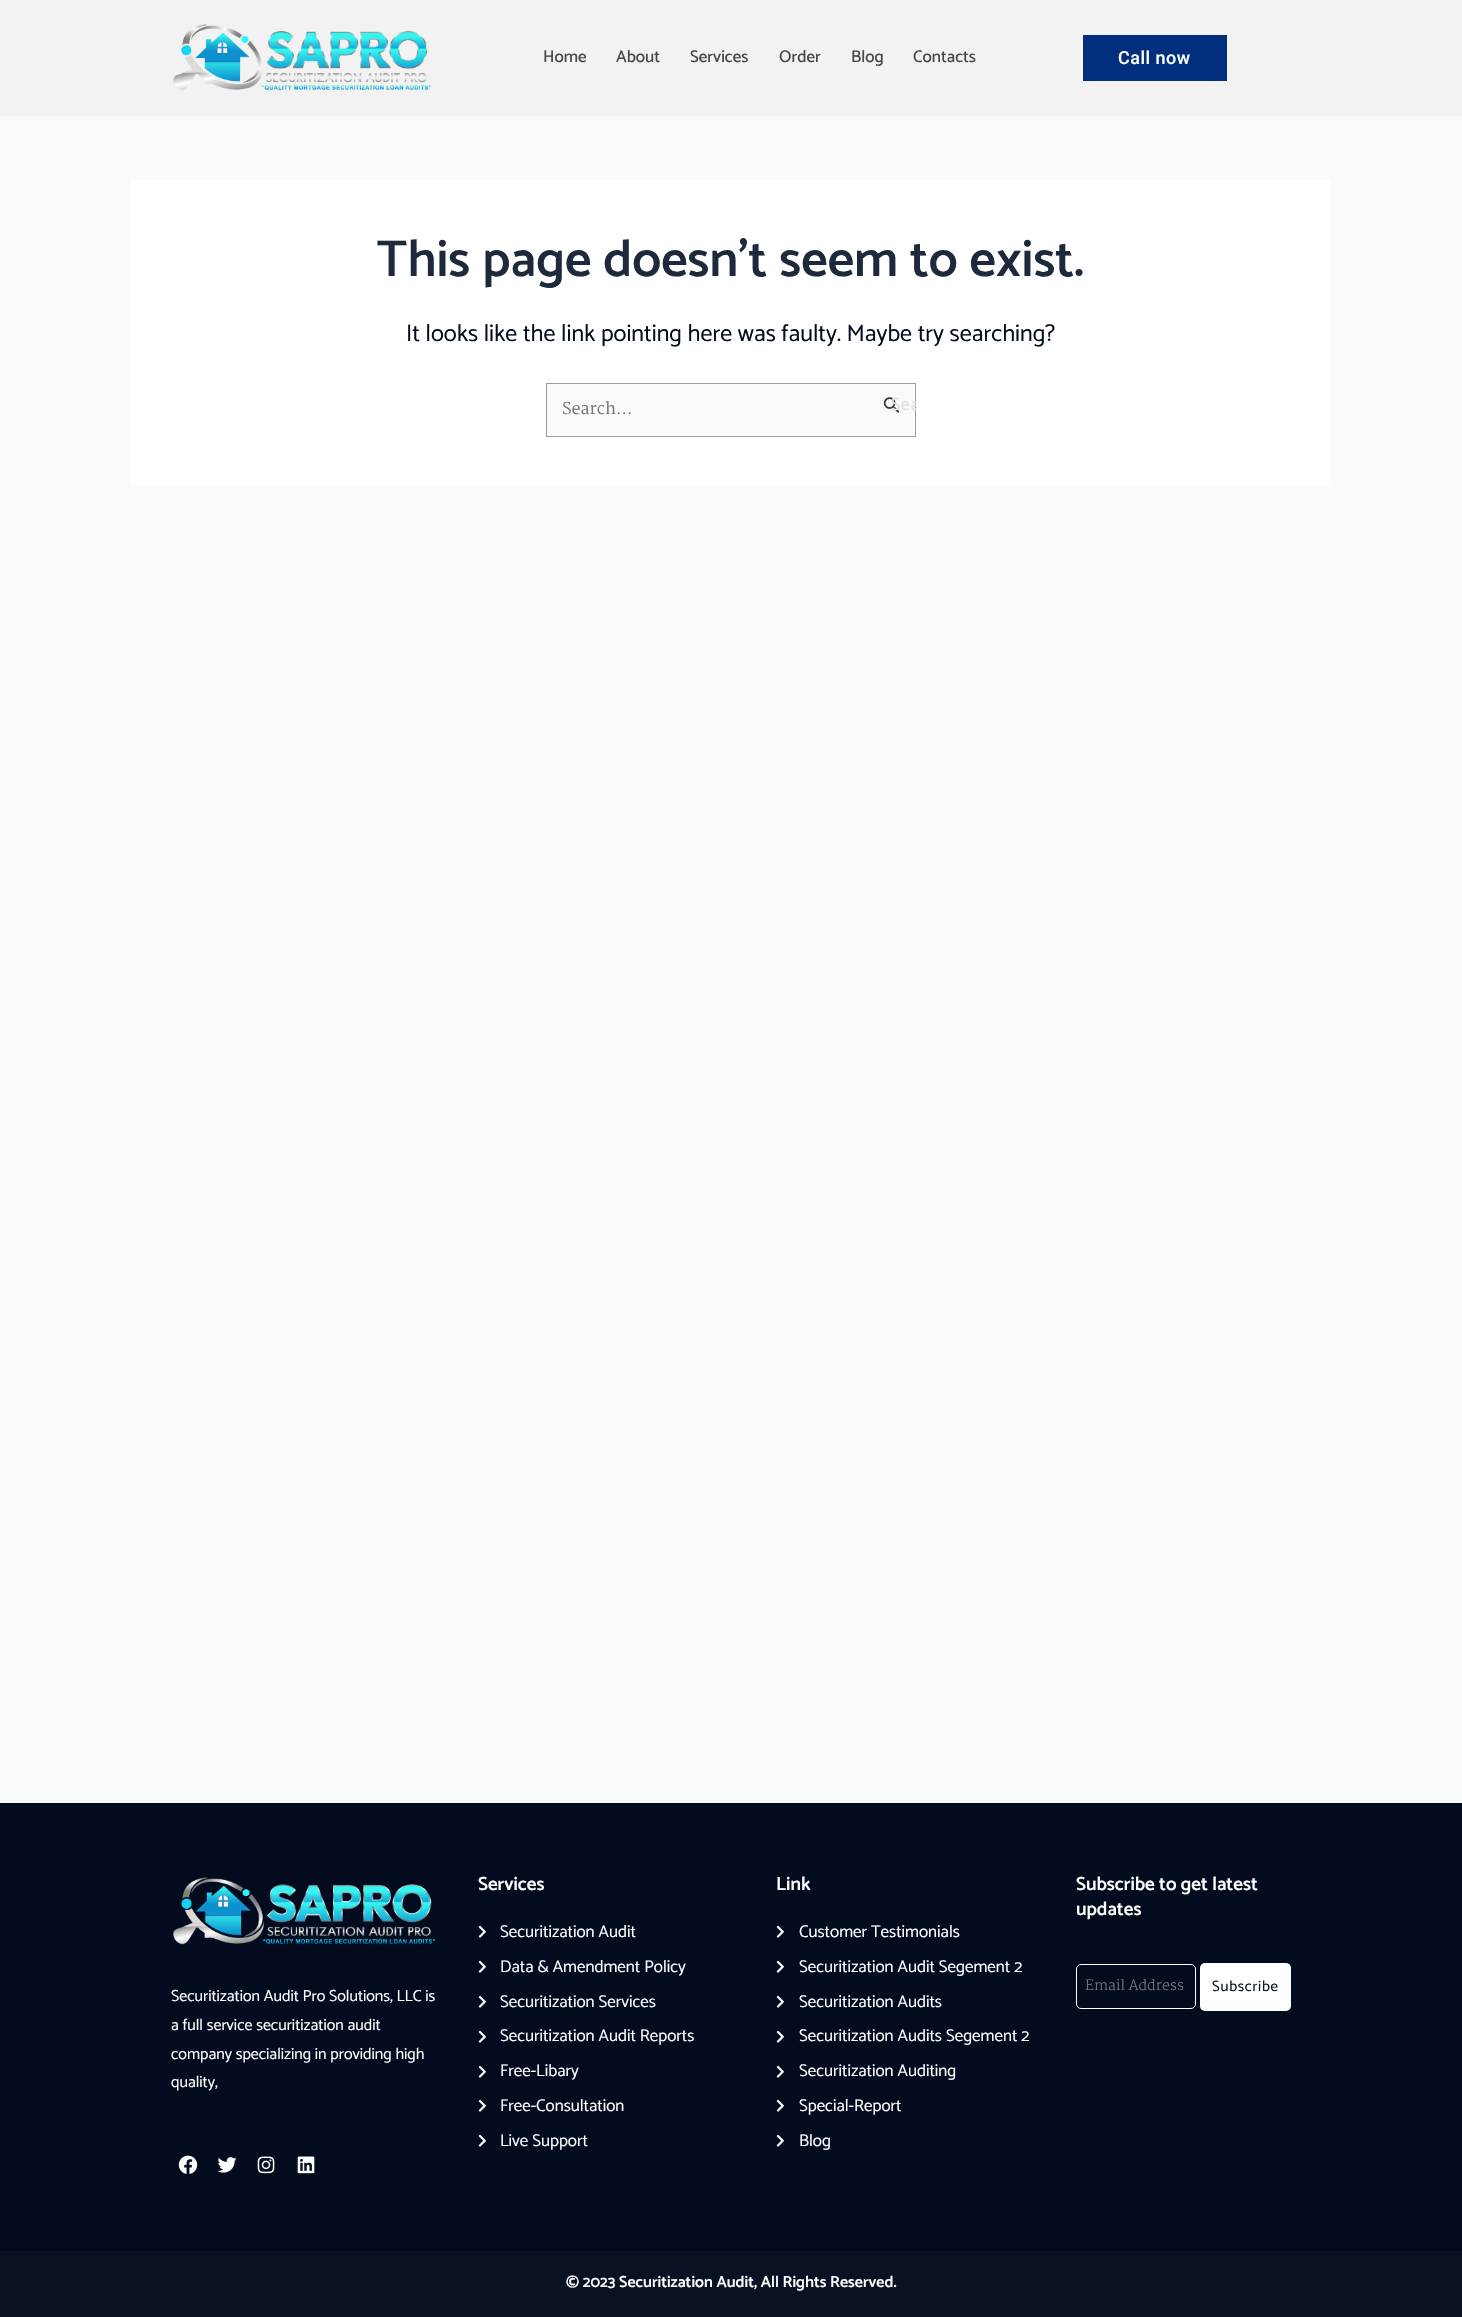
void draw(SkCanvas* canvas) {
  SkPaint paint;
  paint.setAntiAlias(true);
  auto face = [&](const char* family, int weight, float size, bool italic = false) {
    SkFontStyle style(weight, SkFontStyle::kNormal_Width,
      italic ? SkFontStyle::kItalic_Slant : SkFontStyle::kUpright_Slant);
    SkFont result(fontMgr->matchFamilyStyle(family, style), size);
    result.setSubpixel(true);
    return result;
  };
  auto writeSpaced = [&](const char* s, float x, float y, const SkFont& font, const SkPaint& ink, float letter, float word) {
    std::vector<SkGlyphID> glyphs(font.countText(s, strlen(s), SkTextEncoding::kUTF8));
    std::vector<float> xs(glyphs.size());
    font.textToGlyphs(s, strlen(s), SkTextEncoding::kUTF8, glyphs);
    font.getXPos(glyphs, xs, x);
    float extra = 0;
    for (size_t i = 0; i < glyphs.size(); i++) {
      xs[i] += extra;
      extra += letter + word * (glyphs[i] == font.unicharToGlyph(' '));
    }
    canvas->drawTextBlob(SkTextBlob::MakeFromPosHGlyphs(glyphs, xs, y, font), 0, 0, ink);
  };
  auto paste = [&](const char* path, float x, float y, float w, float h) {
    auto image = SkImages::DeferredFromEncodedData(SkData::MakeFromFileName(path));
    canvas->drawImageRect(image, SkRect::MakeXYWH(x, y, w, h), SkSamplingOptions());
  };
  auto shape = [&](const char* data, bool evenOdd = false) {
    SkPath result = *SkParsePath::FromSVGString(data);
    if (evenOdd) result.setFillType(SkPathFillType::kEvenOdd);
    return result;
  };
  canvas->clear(0xfff9fafb);
  paint.setColor(0xfff2f2f2);
  canvas->drawRect(SkRect::MakeXYWH(0, 0, 1462, 116), paint);
  paste("img/1.png", 173, 24, 259, 67);
  paint.setColor(0xff022e7e);
  canvas->drawRect(SkRect::MakeXYWH(1083, 35, 144, 46), paint);
  paint.setColor(0xffffffff);
  canvas->drawRect(SkRect::MakeXYWH(131, 180, 1200, 305), paint);
  paint.setColor(0xfffafafa);
  canvas->drawRect(SkRect::MakeXYWH(546.5f, 383.5f, 369, 53), paint);
  paint.setStroke(true);
  paint.setStrokeWidth(1);
  paint.setColor(0xff969ea7);
  canvas->drawRect(SkRect::MakeXYWH(546.5f, 383.5f, 369, 53), paint);
  paste("img/2.png", 883, 397, 16, 16);
  paint.setStroke(false);
  paint.setColor(0xff020c1e);
  canvas->drawRect(SkRect::MakeXYWH(0, 1803, 1462, 448), paint);
  paste("img/3.png", 478, 1925, 8, 13);
  paste("img/3.png", 478, 1960, 8, 13);
  paste("img/3.png", 478, 1995, 8, 13);
  paste("img/3.png", 478, 2030, 8, 13);
  paste("img/3.png", 478, 2065, 8, 13);
  paste("img/3.png", 478, 2099, 8, 13);
  paste("img/3.png", 478, 2134, 8, 13);
  paste("img/3.png", 776, 1925, 8, 13);
  paste("img/3.png", 776, 1960, 8, 13);
  paste("img/3.png", 776, 1995, 8, 13);
  paste("img/3.png", 776, 2030, 8, 13);
  paste("img/3.png", 776, 2065, 8, 13);
  paste("img/3.png", 776, 2099, 8, 13);
  paste("img/3.png", 776, 2134, 8, 13);
  paint.setStroke(true);
  paint.setColor(0xffffffff);
  canvas->drawRoundRect(SkRect::MakeXYWH(1076.5f, 1964.5f, 119, 44), 4.5f, 4.5f, paint);
  paint.setStroke(false);
  canvas->drawRoundRect(SkRect::MakeXYWH(1200, 1963, 91, 48), 5, 5, paint);
  paste("img/4.png", 173, 1877, 263, 68);
  paste("img/5.png", 178, 2155, 20, 19);
  paste("img/6.png", 217, 2157, 20, 16);
  paste("img/7.png", 257, 2156, 18, 18);
  paste("img/8.png", 297, 2156, 18, 18);
  paint.setColor(0xff091222);
  canvas->drawRect(SkRect::MakeXYWH(0, 2251, 1462, 66), paint);
  auto f0 = face("Catamaran", 500, 17);
  paint.setColor(0xff44484d);
  {
    const struct { const char* s; float x, y; } items[] = {
      {"Home", 543, 62},
      {"About", 616, 62},
      {"Services", 690, 62},
      {"Order", 779, 62},
      {"Blog", 851, 62},
      {"Contacts", 913, 62},
    };
    for (auto [s, x, y] : items) {
      canvas->drawString(s, x, y, f0, paint);
    }
  }
  auto f1 = face("Roboto", 500, 18);
  paint.setColor(0xffffffff);
  writeSpaced("Call now", 1118, 64, f1, paint, 0.5f, 0);
  auto f2 = face("Catamaran", 600, 52);
  paint.setColor(0xff1e293b);
  canvas->drawString("This page doesn't seem to exist.", 377, 276, f2, paint);
  auto f3 = face("Catamaran", 400, 24);
  paint.setColor(0xff020c1e);
  canvas->drawString("It looks like the link pointing here was faulty. Maybe try searching?", 406, 341, f3, paint);
  auto f4 = face("Martel", 400, 16);
  paint.setColor(0xff757575);
  canvas->drawString("Search...", 562, 414, f4, paint);
  canvas->save();
  canvas->clipPath(shape("M873 383H914C915 383 916 384 916 385V425C916 426 915 427 914 427H873C872 427 871 426 871 425V385C871 384 872 383 873 383Z"), true);
  auto f5 = face("Catamaran", 500, 18);
  paint.setColor(0xffe0e1e1);
  writeSpaced("Sea", 891, 410, f5, paint, 0.5f, 0);
  canvas->restore();
  auto f6 = face("Catamaran", 600, 19);
  paint.setColor(0xffffffff);
  canvas->drawString("Services", 478, 1890, f6, paint);
  auto f7 = face("Catamaran", 400, 17);
  {
    const struct { const char* s; float x, y; } items[] = {
      {"Securitization Audit", 500, 1937},
      {"Data & Amendment Policy", 500, 1972},
      {"Securitization Services", 500, 2007},
      {"Securitization Audit Reports", 500, 2041},
      {"Free-Libary", 500, 2076},
      {"Free-Consultation", 500, 2111},
      {"Live Support", 500, 2146},
    };
    for (auto [s, x, y] : items) {
      canvas->drawString(s, x, y, f7, paint);
    }
  }
  canvas->drawString("Link", 776, 1890, f6, paint);
  {
    const struct { const char* s; float x, y; } items[] = {
      {"Customer Testimonials", 799, 1937},
      {"Securitization Audit Segement 2", 799, 1972},
      {"Securitization Audits", 799, 2007},
      {"Securitization Audits Segement 2", 799, 2041},
      {"Securitization Auditing", 799, 2076},
      {"Special-Report", 799, 2111},
      {"Blog", 799, 2146},
    };
    for (auto [s, x, y] : items) {
      canvas->drawString(s, x, y, f7, paint);
    }
  }
  canvas->drawString("Subscribe to get latest", 1076, 1890, f6, paint);
  canvas->drawString("updates", 1076, 1915, f6, paint);
  auto f8 = face("Martel", 300, 14);
  paint.setColor(0xff757575);
  canvas->drawString("Email Address", 1085, 1990, f8, paint);
  auto f9 = face("Catamaran", 400, 15);
  paint.setColor(0xff020c1e);
  writeSpaced("Subscribe", 1212, 1991, f9, paint, 0.75f, 0);
  auto f10 = face("Catamaran", 400, 16);
  paint.setColor(0xffffffff);
  {
    const struct { const char* s; float x, y; } items[] = {
      {"Securitization Audit Pro Solutions, LLC is", 171, 2001},
      {"a full service securitization audit", 171, 2030},
      {"company specializing in providing high", 171, 2059},
      {"quality,", 171, 2087},
    };
    for (auto [s, x, y] : items) {
      canvas->drawString(s, x, y, f10, paint);
    }
  }
  auto f11 = face("Catamaran", 600, 16);
  canvas->drawString("© 2023 Securitization Audit, All Rights Reserved.", 566, 2287, f11, paint);
}
